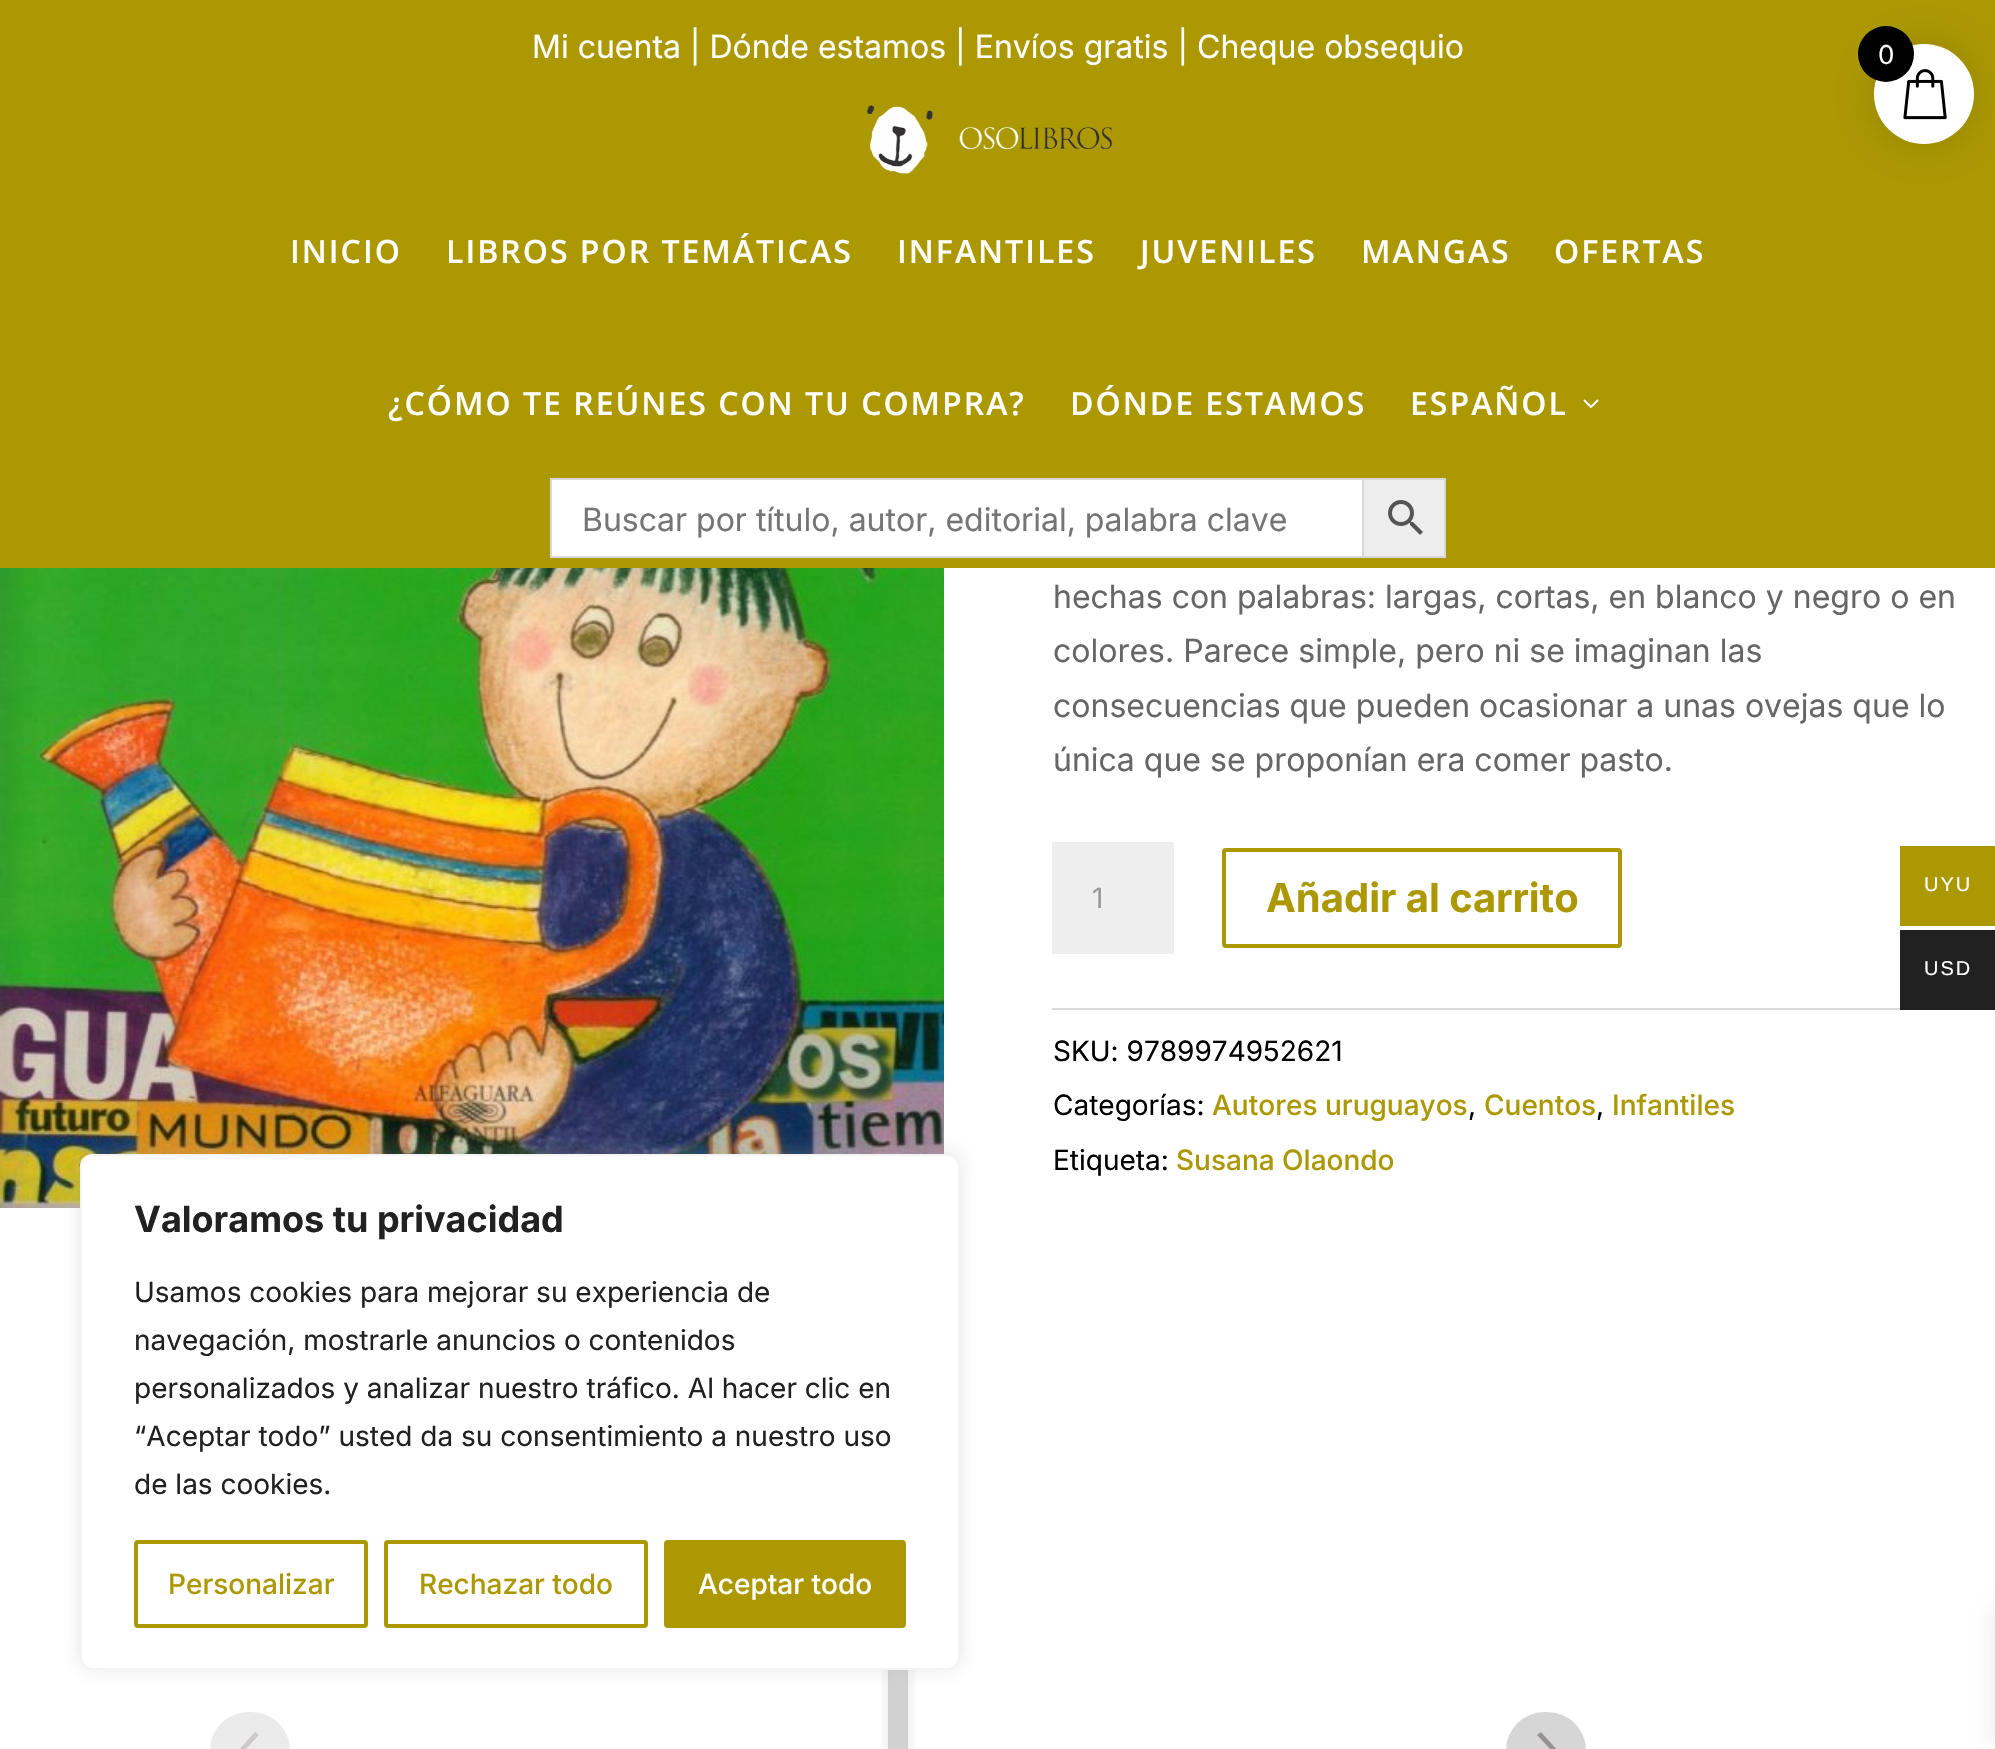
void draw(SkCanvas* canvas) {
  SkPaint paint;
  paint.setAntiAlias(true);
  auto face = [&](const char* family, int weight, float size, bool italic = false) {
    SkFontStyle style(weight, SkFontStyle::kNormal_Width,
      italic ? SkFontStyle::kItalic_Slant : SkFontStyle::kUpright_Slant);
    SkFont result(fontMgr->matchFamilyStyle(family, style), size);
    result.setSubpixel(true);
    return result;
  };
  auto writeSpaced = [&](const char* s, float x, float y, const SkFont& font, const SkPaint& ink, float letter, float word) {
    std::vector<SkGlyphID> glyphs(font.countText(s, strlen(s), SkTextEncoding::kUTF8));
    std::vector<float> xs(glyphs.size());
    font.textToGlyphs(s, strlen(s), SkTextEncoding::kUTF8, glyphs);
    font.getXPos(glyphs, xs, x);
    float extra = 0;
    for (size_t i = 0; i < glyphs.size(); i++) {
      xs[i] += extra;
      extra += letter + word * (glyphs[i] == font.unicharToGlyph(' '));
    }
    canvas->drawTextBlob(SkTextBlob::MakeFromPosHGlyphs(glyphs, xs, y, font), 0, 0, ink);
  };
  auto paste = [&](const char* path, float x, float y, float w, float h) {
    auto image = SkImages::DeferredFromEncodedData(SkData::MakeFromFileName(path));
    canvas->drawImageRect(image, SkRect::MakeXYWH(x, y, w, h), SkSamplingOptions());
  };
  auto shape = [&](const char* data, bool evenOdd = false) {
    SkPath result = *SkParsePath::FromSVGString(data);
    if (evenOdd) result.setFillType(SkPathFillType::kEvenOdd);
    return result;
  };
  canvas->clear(0xffffffff);
  paint.setColor(0xffab9803);
  canvas->drawRect(SkRect::MakeXYWH(0, 0, 1995, 568), paint);
  paste("img/1.png", 867, 105, 246, 69);
  paste("img/2.png", 1583, 399, 16, 9);
  paint.setColor(0xffffffff);
  canvas->drawRect(SkRect::MakeXYWH(552, 480, 810, 76), paint);
  paint.setColor(0xffededed);
  canvas->drawRect(SkRect::MakeXYWH(1363, 479, 82, 78), paint);
  paint.setStroke(true);
  paint.setStrokeWidth(2);
  paint.setColor(0xffd8d8d8);
  canvas->drawRect(SkRect::MakeXYWH(1363, 479, 82, 78), paint);
  canvas->drawRect(SkRect::MakeXYWH(551, 479, 812, 78), paint);
  paste("img/3.png", 1388, 500, 35, 35);
  paste("img/4.png", 0, 568, 944, 640);
  paint.setStroke(false);
  paint.setColor(0xffeeeeee);
  canvas->drawRect(SkRect::MakeXYWH(1052, 842, 122, 112), paint);
  paint.setStroke(true);
  paint.setStrokeWidth(4);
  paint.setColor(0xffab9803);
  canvas->drawRoundRect(SkRect::MakeXYWH(1224, 850, 396, 96), 2, 2, paint);
  paint.setStroke(false);
  paint.setColor(0xffdadada);
  canvas->drawRect(SkRect::MakeXYWH(1052, 1008, 848, 2), paint);
  canvas->save();
  canvas->clipRect(SkRect::MakeXYWH(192, 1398, 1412, 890));
  canvas->clipRect(SkRect::MakeXYWH(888, 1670, 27, 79));
  paint.setColor(0x4d000000);
  paint.setMaskFilter(SkMaskFilter::MakeBlur(kNormal_SkBlurStyle, 18));
  canvas->drawRect(SkRect::MakeXYWH(192, 1402, 696, 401), paint);
  paint.setMaskFilter(nullptr);
  canvas->restore();
  canvas->save();
  canvas->clipRect(SkRect::MakeXYWH(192, 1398, 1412, 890));
  canvas->clipRect(SkRect::MakeXYWH(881, 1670, 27, 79));
  paint.setMaskFilter(SkMaskFilter::MakeBlur(kNormal_SkBlurStyle, 18));
  canvas->drawRect(SkRect::MakeXYWH(908, 1402, 696, 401), paint);
  paint.setMaskFilter(nullptr);
  canvas->restore();
  paint.setColor(0xffebebeb);
  canvas->drawRoundRect(SkRect::MakeXYWH(210, 1712, 80, 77), 40, 40, paint);
  paint.setColor(0xffcbc9c9);
  canvas->drawPath(shape("M255 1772L237 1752L255 1732L259 1735L243 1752L259 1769Z", true), paint);
  paint.setColor(0xffd6d6d6);
  canvas->drawRoundRect(SkRect::MakeXYWH(1506, 1712, 80, 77), 40, 40, paint);
  paint.setColor(0xff969292);
  canvas->drawPath(shape("M1541 1732L1559 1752L1541 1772L1537 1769L1553 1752L1537 1735Z", true), paint);
  paint.setColor(0x1a000000);
  paint.setMaskFilter(SkMaskFilter::MakeBlur(kNormal_SkBlurStyle, 15));
  canvas->drawRoundRect(SkRect::MakeXYWH(1870, 40, 108, 108), 54, 54, paint);
  paint.setMaskFilter(nullptr);
  paint.setColor(0xffffffff);
  canvas->drawCircle(1924, 94, 50, paint);
  paste("img/5.png", 1903, 69, 44, 51);
  paint.setColor(0xff000000);
  canvas->drawCircle(1886, 54, 28, paint);
  paint.setColor(0x1a000000);
  paint.setMaskFilter(SkMaskFilter::MakeBlur(kNormal_SkBlurStyle, 10));
  canvas->drawRect(SkRect::MakeXYWH(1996, 1606, 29, 142), paint);
  paint.setMaskFilter(nullptr);
  paint.setColor(0xffab9803);
  canvas->drawRect(SkRect::MakeXYWH(1900, 846, 95, 80), paint);
  paint.setColor(0xff212121);
  canvas->drawRect(SkRect::MakeXYWH(1900, 930, 95, 80), paint);
  paint.setColor(0x4dacabab);
  paint.setMaskFilter(SkMaskFilter::MakeBlur(kNormal_SkBlurStyle, 10));
  canvas->drawRoundRect(SkRect::MakeXYWH(80, 1152, 880, 516), 12, 12, paint);
  paint.setMaskFilter(nullptr);
  paint.setColor(0xffffffff);
  canvas->drawRoundRect(SkRect::MakeXYWH(81, 1155, 878, 514), 11, 11, paint);
  paint.setStroke(true);
  paint.setStrokeWidth(2);
  paint.setColor(0xfff4f4f4);
  canvas->drawRoundRect(SkRect::MakeXYWH(81, 1155, 878, 514), 11, 11, paint);
  paint.setStrokeWidth(4);
  paint.setColor(0xffab9803);
  canvas->drawRoundRect(SkRect::MakeXYWH(136, 1542, 230, 84), 2, 2, paint);
  canvas->drawRoundRect(SkRect::MakeXYWH(386, 1542, 260, 84), 2, 2, paint);
  paint.setStroke(false);
  canvas->drawRoundRect(SkRect::MakeXYWH(666, 1542, 238, 84), 2, 2, paint);
  paint.setStroke(true);
  canvas->drawRoundRect(SkRect::MakeXYWH(666, 1542, 238, 84), 2, 2, paint);
  auto f0 = face("Inter", 400, 32);
  paint.setStroke(false);
  paint.setColor(0xffffffff);
  canvas->drawString("Mi cuenta | Dónde estamos | Envíos gratis | Cheque obsequio", 532, 58, f0, paint);
  auto f1 = face("Open Sans", 600, 32);
  {
    const struct { const char* s; float x, y; } items[] = {
      {"INICIO", 290, 263},
      {"LIBROS POR TEMÁTICAS", 446, 263},
      {"INFANTILES", 897, 263},
      {"JUVENILES", 1140, 263},
      {"MANGAS", 1361, 263},
      {"OFERTAS", 1554, 263},
      {"¿CÓMO TE REÚNES CON TU COMPRA?", 388, 415},
      {"DÓNDE ESTAMOS", 1070, 415},
      {"ESPAÑOL", 1410, 415},
    };
    for (auto [s, x, y] : items) {
      writeSpaced(s, x, y, f1, paint, 2, 0);
    }
  }
  paint.setColor(0xff757575);
  canvas->drawString("Buscar por título, autor, editorial, palabra clave", 582, 531, f0, paint);
  paint.setColor(0xff666666);
  {
    const struct { const char* s; float x, y; } items[] = {
      {"hechas con palabras: largas, cortas, en blanco y negro o en", 1053, 608},
      {"colores. Parece simple, pero ni se imaginan las", 1053, 662},
      {"consecuencias que pueden ocasionar a unas ovejas que lo", 1053, 717},
      {"única que se proponían era comer pasto.", 1053, 771},
    };
    for (auto [s, x, y] : items) {
      canvas->drawString(s, x, y, f0, paint);
    }
  }
  auto f2 = face("Inter", 400, 28);
  paint.setColor(0xff999999);
  canvas->drawString("1", 1092, 908, f2, paint);
  auto f3 = face("Inter", 700, 40);
  paint.setColor(0xffab9803);
  canvas->drawString("Añadir al carrito", 1266, 912, f3, paint);
  paint.setColor(0xff000000);
  canvas->drawString("SKU: 9789974952621", 1053, 1061, f2, paint);
  canvas->drawString("Categorías:", 1053, 1115, f2, paint);
  auto f4 = face("Inter", 500, 28);
  paint.setColor(0xffab9803);
  canvas->drawString("Autores uruguayos", 1212, 1115, f4, paint);
  paint.setColor(0xff000000);
  canvas->drawString(",", 1468, 1115, f2, paint);
  paint.setColor(0xffab9803);
  canvas->drawString("Cuentos", 1484, 1115, f4, paint);
  paint.setColor(0xff000000);
  canvas->drawString(",", 1596, 1115, f2, paint);
  paint.setColor(0xffab9803);
  canvas->drawString("Infantiles", 1612, 1115, f4, paint);
  paint.setColor(0xff000000);
  canvas->drawString("Etiqueta:", 1053, 1170, f2, paint);
  paint.setColor(0xffab9803);
  canvas->drawString("Susana Olaondo", 1176, 1170, f4, paint);
  auto f5 = face("Inter", 400, 26);
  paint.setColor(0xffffffff);
  canvas->drawString("0", 1878, 64, f5, paint);
  auto f6 = face("Liberation Sans", 400, 20);
  writeSpaced("UYU", 1924, 891, f6, paint, 2, 0);
  writeSpaced("USD", 1924, 975, f6, paint, 2, 0);
  auto f7 = face("Inter", 700, 36);
  paint.setColor(0xff212121);
  canvas->drawString("Valoramos tu privacidad", 134, 1232, f7, paint);
  {
    const struct { const char* s; float x, y; } items[] = {
      {"Usamos cookies para mejorar su experiencia de", 134, 1302},
      {"navegación, mostrarle anuncios o contenidos", 134, 1350},
      {"personalizados y analizar nuestro tráfico. Al hacer clic en", 134, 1398},
      {"“Aceptar todo” usted da su consentimiento a nuestro uso", 134, 1446},
      {"de las cookies.", 134, 1494},
    };
    for (auto [s, x, y] : items) {
      canvas->drawString(s, x, y, f2, paint);
    }
  }
  paint.setColor(0xffab9803);
  canvas->drawString("Personalizar", 168, 1594, f4, paint);
  canvas->drawString("Rechazar todo", 419, 1594, f4, paint);
  paint.setColor(0xffffffff);
  canvas->drawString("Aceptar todo", 698, 1594, f4, paint);
}
